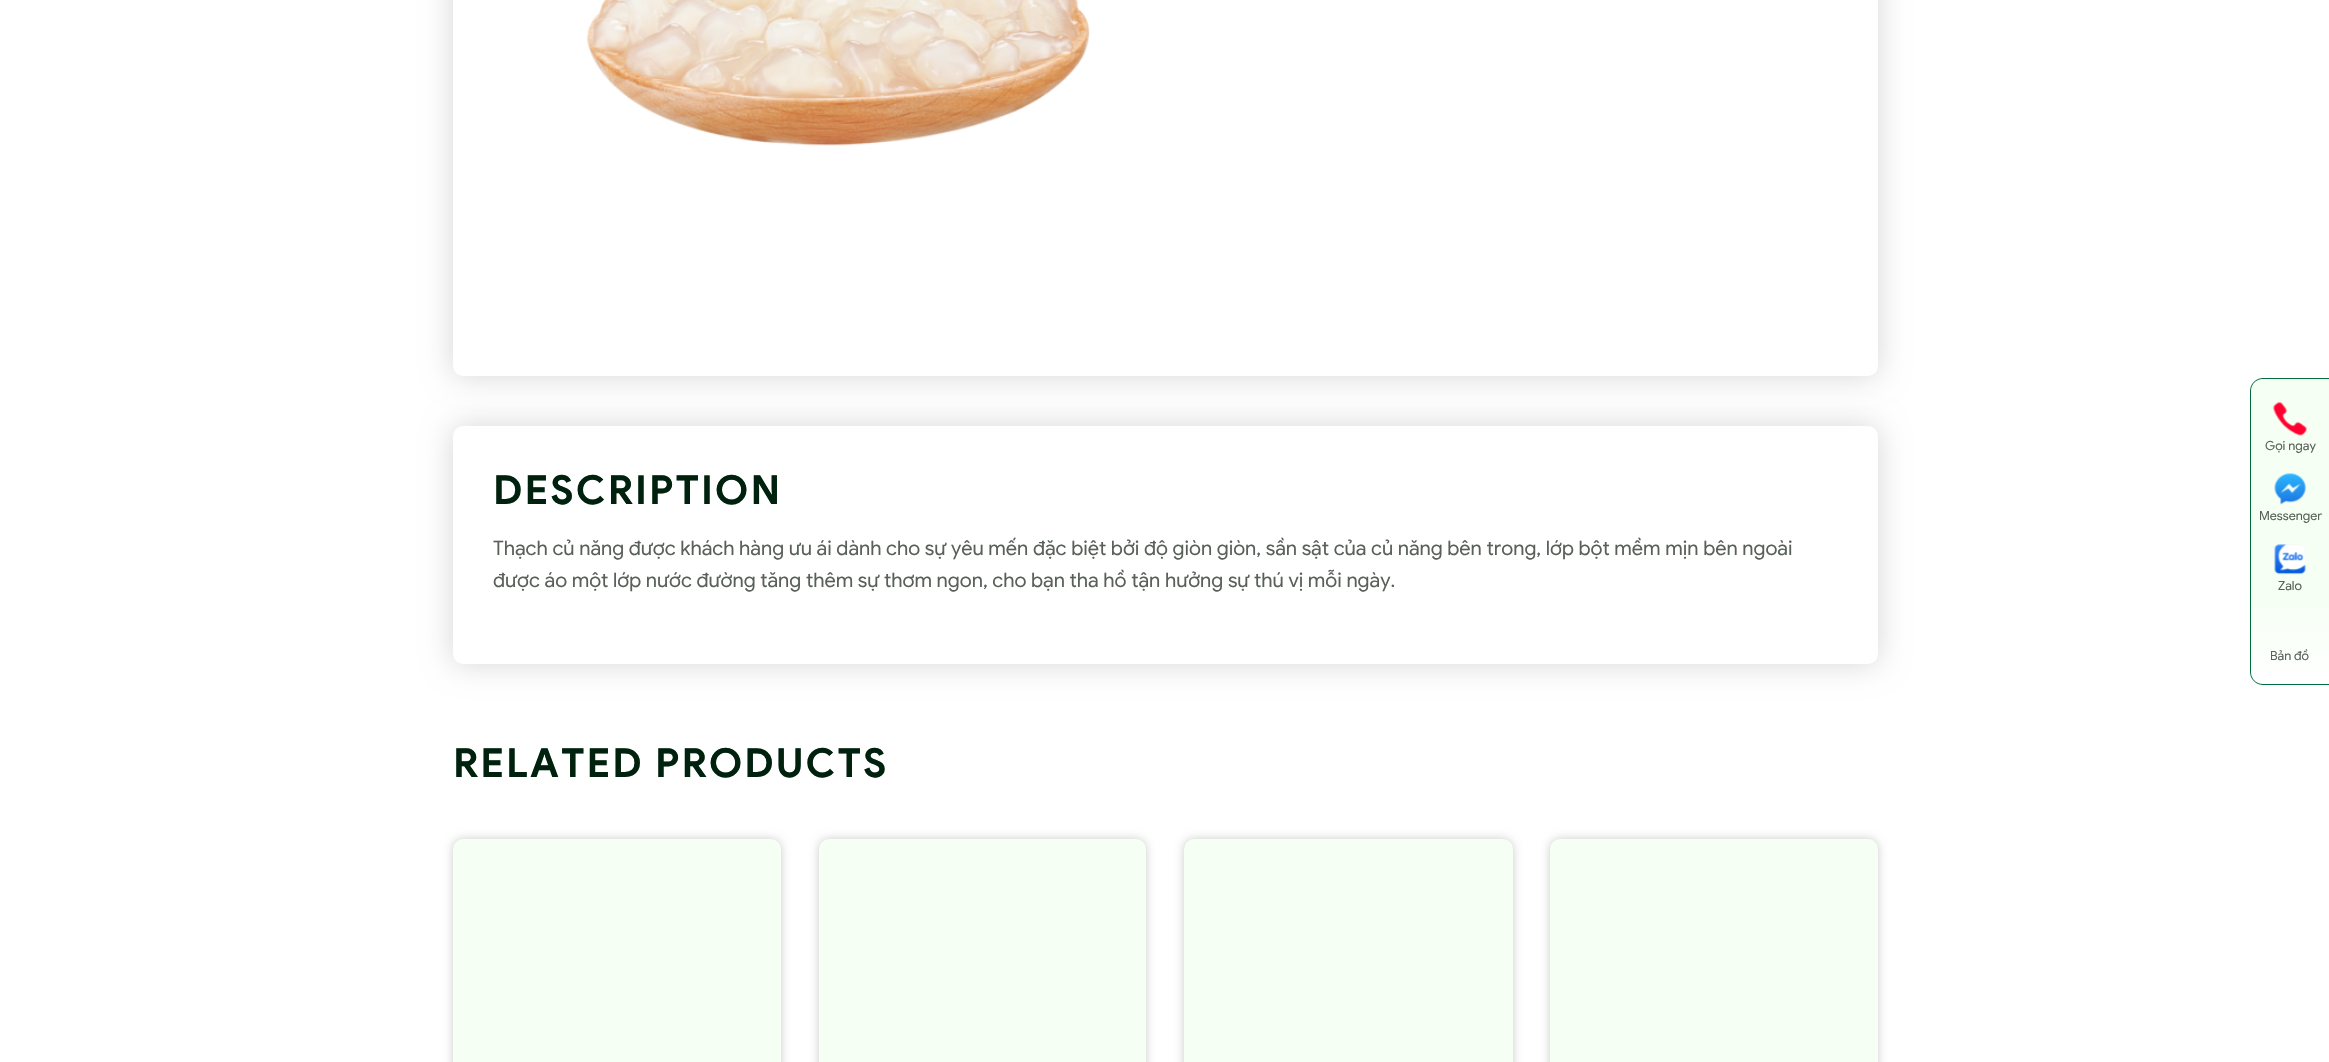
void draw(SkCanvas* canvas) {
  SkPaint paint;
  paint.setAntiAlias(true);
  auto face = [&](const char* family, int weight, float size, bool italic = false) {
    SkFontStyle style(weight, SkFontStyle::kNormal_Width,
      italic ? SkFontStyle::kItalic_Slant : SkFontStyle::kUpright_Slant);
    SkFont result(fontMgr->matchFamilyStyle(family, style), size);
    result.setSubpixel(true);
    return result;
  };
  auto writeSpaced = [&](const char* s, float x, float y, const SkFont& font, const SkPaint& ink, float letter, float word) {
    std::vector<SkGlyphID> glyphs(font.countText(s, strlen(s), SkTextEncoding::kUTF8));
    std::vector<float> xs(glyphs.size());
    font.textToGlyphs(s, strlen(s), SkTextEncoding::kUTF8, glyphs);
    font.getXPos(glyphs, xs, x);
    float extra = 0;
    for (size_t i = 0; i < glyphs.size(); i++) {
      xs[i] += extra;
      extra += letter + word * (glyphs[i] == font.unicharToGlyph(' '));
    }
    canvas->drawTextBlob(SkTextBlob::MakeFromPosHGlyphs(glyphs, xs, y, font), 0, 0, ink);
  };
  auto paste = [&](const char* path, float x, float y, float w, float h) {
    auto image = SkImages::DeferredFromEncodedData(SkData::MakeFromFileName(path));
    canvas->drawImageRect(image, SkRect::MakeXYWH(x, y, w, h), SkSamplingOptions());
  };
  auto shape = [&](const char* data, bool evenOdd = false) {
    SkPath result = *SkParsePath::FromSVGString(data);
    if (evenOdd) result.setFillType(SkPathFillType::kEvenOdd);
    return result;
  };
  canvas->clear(0xffffffff);
  paint.setColor(0x29000000);
  paint.setMaskFilter(SkMaskFilter::MakeBlur(kNormal_SkBlurStyle, 15));
  canvas->drawRoundRect(SkRect::MakeXYWH(453, -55, 1425, 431), 10, 10, paint);
  paint.setMaskFilter(nullptr);
  paint.setColor(0xffffffff);
  canvas->drawRoundRect(SkRect::MakeXYWH(453, -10, 1425, 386), 10, 10, paint);
  paste("img/1.png", 586, 0, 504, 146);
  paint.setColor(0x29000000);
  paint.setMaskFilter(SkMaskFilter::MakeBlur(kNormal_SkBlurStyle, 15));
  canvas->drawRoundRect(SkRect::MakeXYWH(453, 426, 1425, 238), 10, 10, paint);
  paint.setMaskFilter(nullptr);
  paint.setColor(0xffffffff);
  canvas->drawRoundRect(SkRect::MakeXYWH(453, 426, 1425, 238), 10, 10, paint);
  paint.setColor(0x33000000);
  paint.setMaskFilter(SkMaskFilter::MakeBlur(kNormal_SkBlurStyle, 5));
  canvas->drawRoundRect(SkRect::MakeXYWH(453, 839, 328, 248), 10, 10, paint);
  paint.setMaskFilter(nullptr);
  paint.setColor(0xfff5fff3);
  canvas->drawRoundRect(SkRect::MakeXYWH(453, 839, 328, 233), 10, 10, paint);
  paint.setColor(0x33000000);
  paint.setMaskFilter(SkMaskFilter::MakeBlur(kNormal_SkBlurStyle, 5));
  canvas->drawRoundRect(SkRect::MakeXYWH(819, 839, 327, 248), 10, 10, paint);
  paint.setMaskFilter(nullptr);
  paint.setColor(0xfff5fff3);
  canvas->drawRoundRect(SkRect::MakeXYWH(819, 839, 327, 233), 10, 10, paint);
  paint.setColor(0x33000000);
  paint.setMaskFilter(SkMaskFilter::MakeBlur(kNormal_SkBlurStyle, 5));
  canvas->drawRoundRect(SkRect::MakeXYWH(1184, 839, 329, 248), 10, 10, paint);
  paint.setMaskFilter(nullptr);
  paint.setColor(0xfff5fff3);
  canvas->drawRoundRect(SkRect::MakeXYWH(1184, 839, 329, 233), 10, 10, paint);
  paint.setColor(0x33000000);
  paint.setMaskFilter(SkMaskFilter::MakeBlur(kNormal_SkBlurStyle, 5));
  canvas->drawRoundRect(SkRect::MakeXYWH(1550, 839, 328, 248), 10, 10, paint);
  paint.setMaskFilter(nullptr);
  paint.setColor(0xfff5fff3);
  canvas->drawRoundRect(SkRect::MakeXYWH(1550, 839, 328, 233), 10, 10, paint);
  canvas->save();
  canvas->clipPath(shape("M2263 378H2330V685H2263C2256 685 2250 679 2250 672V391C2250 384 2256 378 2263 378Z"), true);
  {
    const SkColor colors[] = {0xfff5fff3, 0xffffffff};
    const float stops[] = {0.69f, 1};
    const SkPoint ends[] = {{2290, 379}, {2290, 684}};
    paint.setShader(SkGradientShader::MakeLinear(ends, colors, stops, 2, SkTileMode::kClamp));
    paint.setAlpha(255);
  }
  canvas->drawRect(SkRect::MakeXYWH(2250, 379, 79, 305), paint);
  canvas->restore();
  paint.setStroke(true);
  paint.setStrokeWidth(1);
  paint.setShader(nullptr);
  paint.setColor(0xff006d3b);
  canvas->drawPath(shape("M2263 378.5H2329.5V684.5H2263C2256 684.5 2250.5 679 2250.5 672V391C2250.5 384 2256 378.5 2263 378.5Z"), paint);
  paste("img/2.png", 2273, 401, 35, 35);
  paste("img/3.png", 2274, 473, 33, 32);
  paste("img/4.png", 2274, 544, 32, 31);
  auto f0 = face("Google Sans", 700, 40);
  paint.setStroke(false);
  paint.setColor(0xff00210e);
  writeSpaced("DESCRIPTION", 493, 504, f0, paint, 2, 0);
  auto f1 = face("Google Sans", 400, 20);
  paint.setColor(0xff586059);
  canvas->drawString("Thạch củ năng được khách hàng ưu ái dành cho sự yêu mến đặc biệt bởi độ giòn giòn, sần sật của củ năng bên trong, lớp bột mềm mịn bên ngoài", 493, 555, f1, paint);
  canvas->drawString("được áo một lớp nước đường tăng thêm sự thơm ngon, cho bạn tha hồ tận hưởng sự thú vị mỗi ngày.", 493, 587, f1, paint);
  paint.setColor(0xff00210e);
  writeSpaced("RELATED PRODUCTS", 453, 777, f0, paint, 2, 0);
  auto f2 = face("Google Sans", 400, 12.5f);
  paint.setColor(0xff586059);
  {
    const struct { const char* s; float x, y; } items[] = {
      {"Gọi ngay", 2265, 450},
      {"Messenger", 2259, 520},
      {"Zalo", 2278, 590},
      {"Bản đồ", 2270, 660},
    };
    for (auto [s, x, y] : items) {
      canvas->drawString(s, x, y, f2, paint);
    }
  }
}
